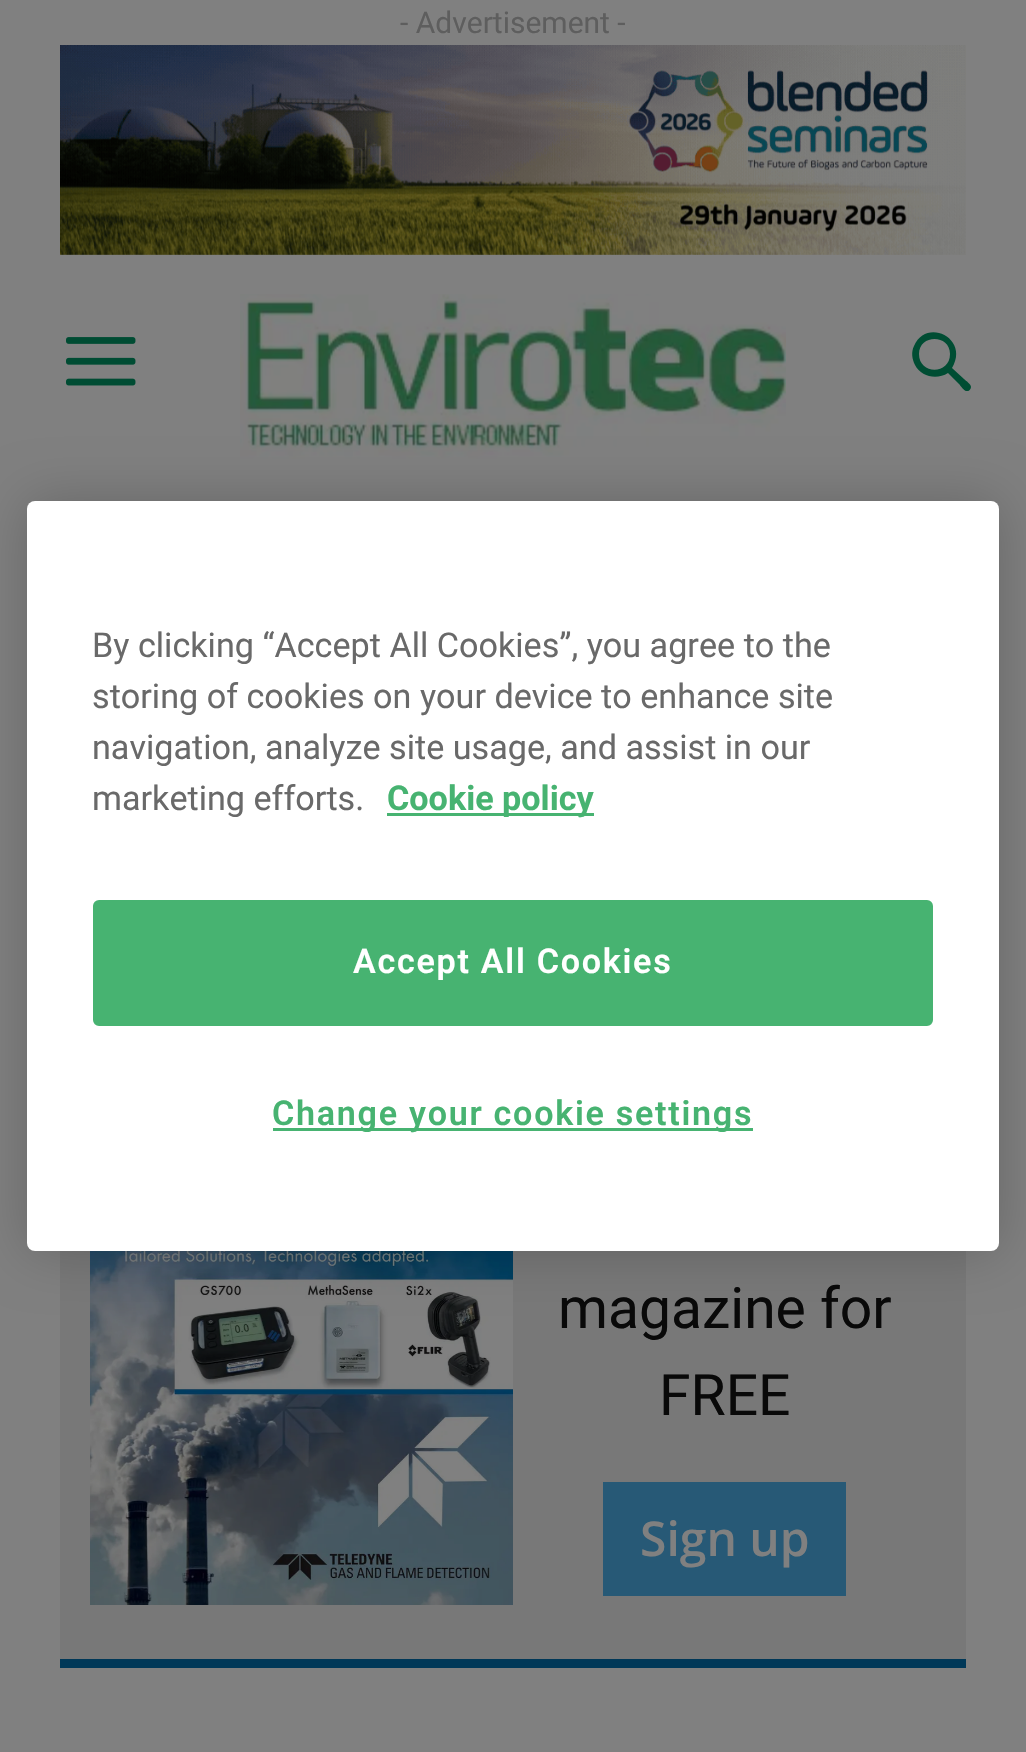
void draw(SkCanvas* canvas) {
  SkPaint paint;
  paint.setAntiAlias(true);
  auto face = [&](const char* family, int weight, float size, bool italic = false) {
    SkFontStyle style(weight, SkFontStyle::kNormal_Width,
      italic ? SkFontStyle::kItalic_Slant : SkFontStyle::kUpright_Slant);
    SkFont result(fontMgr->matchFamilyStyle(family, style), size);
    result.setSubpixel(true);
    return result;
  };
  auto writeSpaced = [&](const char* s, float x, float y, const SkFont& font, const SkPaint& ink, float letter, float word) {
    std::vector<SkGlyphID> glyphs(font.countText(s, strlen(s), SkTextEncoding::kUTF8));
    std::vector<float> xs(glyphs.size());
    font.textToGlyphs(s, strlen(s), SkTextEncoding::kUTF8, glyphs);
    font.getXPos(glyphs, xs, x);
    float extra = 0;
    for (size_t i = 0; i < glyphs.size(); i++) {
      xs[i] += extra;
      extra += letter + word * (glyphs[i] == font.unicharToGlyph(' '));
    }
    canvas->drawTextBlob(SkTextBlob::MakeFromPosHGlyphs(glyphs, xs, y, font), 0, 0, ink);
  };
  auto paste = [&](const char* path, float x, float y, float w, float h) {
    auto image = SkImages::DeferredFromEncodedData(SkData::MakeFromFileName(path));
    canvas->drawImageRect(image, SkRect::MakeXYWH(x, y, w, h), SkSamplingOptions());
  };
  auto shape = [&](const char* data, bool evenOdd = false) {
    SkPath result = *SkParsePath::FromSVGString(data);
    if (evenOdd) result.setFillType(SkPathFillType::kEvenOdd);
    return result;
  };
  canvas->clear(0xff808080);
  paste("img/1.png", 60, 45, 906, 210);
  paste("img/2.png", 66, 337, 70, 49);
  paste("img/3.png", 240, 294, 546, 165);
  paint.setColor(0xff004d33);
  canvas->drawPath(shape("M950 354C950 375 919 375 919 354C919 334 950 334 950 354ZM971 387C971 384 966 381 964 379L952 368C970 338 926 317 914 346C911 352 912 359 915 365C921 377 937 380 948 373L959 384C961 386 964 392 968 391C969 391 971 389 971 387Z"), paint);
  paint.setColor(0xff787878);
  canvas->drawRect(SkRect::MakeXYWH(60, 1251, 906, 408), paint);
  paint.setColor(0xff003858);
  canvas->drawRect(SkRect::MakeXYWH(60, 1659, 906, 9), paint);
  paste("img/4.png", 90, 1251, 423, 354);
  paint.setColor(0xff275976);
  canvas->drawRect(SkRect::MakeXYWH(603, 1482, 243, 114), paint);
  paint.setColor(0x33000000);
  paint.setMaskFilter(SkMaskFilter::MakeBlur(kNormal_SkBlurStyle, 27));
  canvas->drawRoundRect(SkRect::MakeXYWH(27, 501, 972, 750), 8, 8, paint);
  paint.setMaskFilter(nullptr);
  paint.setColor(0xffffffff);
  canvas->drawRoundRect(SkRect::MakeXYWH(27, 501, 972, 750), 8, 8, paint);
  paint.setColor(0xff47b371);
  canvas->drawRect(SkRect::MakeXYWH(387, 813, 207, 3), paint);
  canvas->drawRoundRect(SkRect::MakeXYWH(94.5f, 901.5f, 837, 123), 4.5f, 4.5f, paint);
  paint.setStroke(true);
  paint.setStrokeWidth(3);
  canvas->drawRoundRect(SkRect::MakeXYWH(94.5f, 901.5f, 837, 123), 4.5f, 4.5f, paint);
  paint.setStroke(false);
  canvas->drawRect(SkRect::MakeXYWH(273, 1128, 480, 3), paint);
  auto f0 = face("Roboto", 400, 30);
  paint.setColor(0xff5e5e5e);
  canvas->drawString("- Advertisement -", 400, 33, f0, paint);
  auto f1 = face("Roboto", 400, 57);
  paint.setColor(0xff090909);
  canvas->drawString("magazine for", 558, 1328, f1, paint);
  canvas->drawString("FREE", 659, 1415, f1, paint);
  auto f2 = face("Open Sans", 600, 48);
  paint.setColor(0xff808080);
  canvas->drawString("Sign up", 640, 1556, f2, paint);
  auto f3 = face("Roboto", 400, 34.15f);
  paint.setColor(0xff696969);
  {
    const struct { const char* s; float x, y; } items[] = {
      {"By clicking “Accept All Cookies”, you agree to the", 92, 657},
      {"storing of cookies on your device to enhance site", 92, 708},
      {"navigation, analyze site usage, and assist in our", 92, 759},
      {"marketing efforts.", 92, 810},
    };
    for (auto [s, x, y] : items) {
      canvas->drawString(s, x, y, f3, paint);
    }
  }
  auto f4 = face("Roboto", 700, 34.15f);
  paint.setColor(0xff47b371);
  canvas->drawString("Cookie policy", 387, 810, f4, paint);
  auto f5 = face("Roboto", 600, 34.15f);
  paint.setColor(0xffffffff);
  writeSpaced("Accept All Cookies", 353, 973, f5, paint, 1.7f, 0);
  paint.setColor(0xff47b371);
  writeSpaced("Change your cookie settings", 272, 1125, f5, paint, 1.7f, 0);
}
